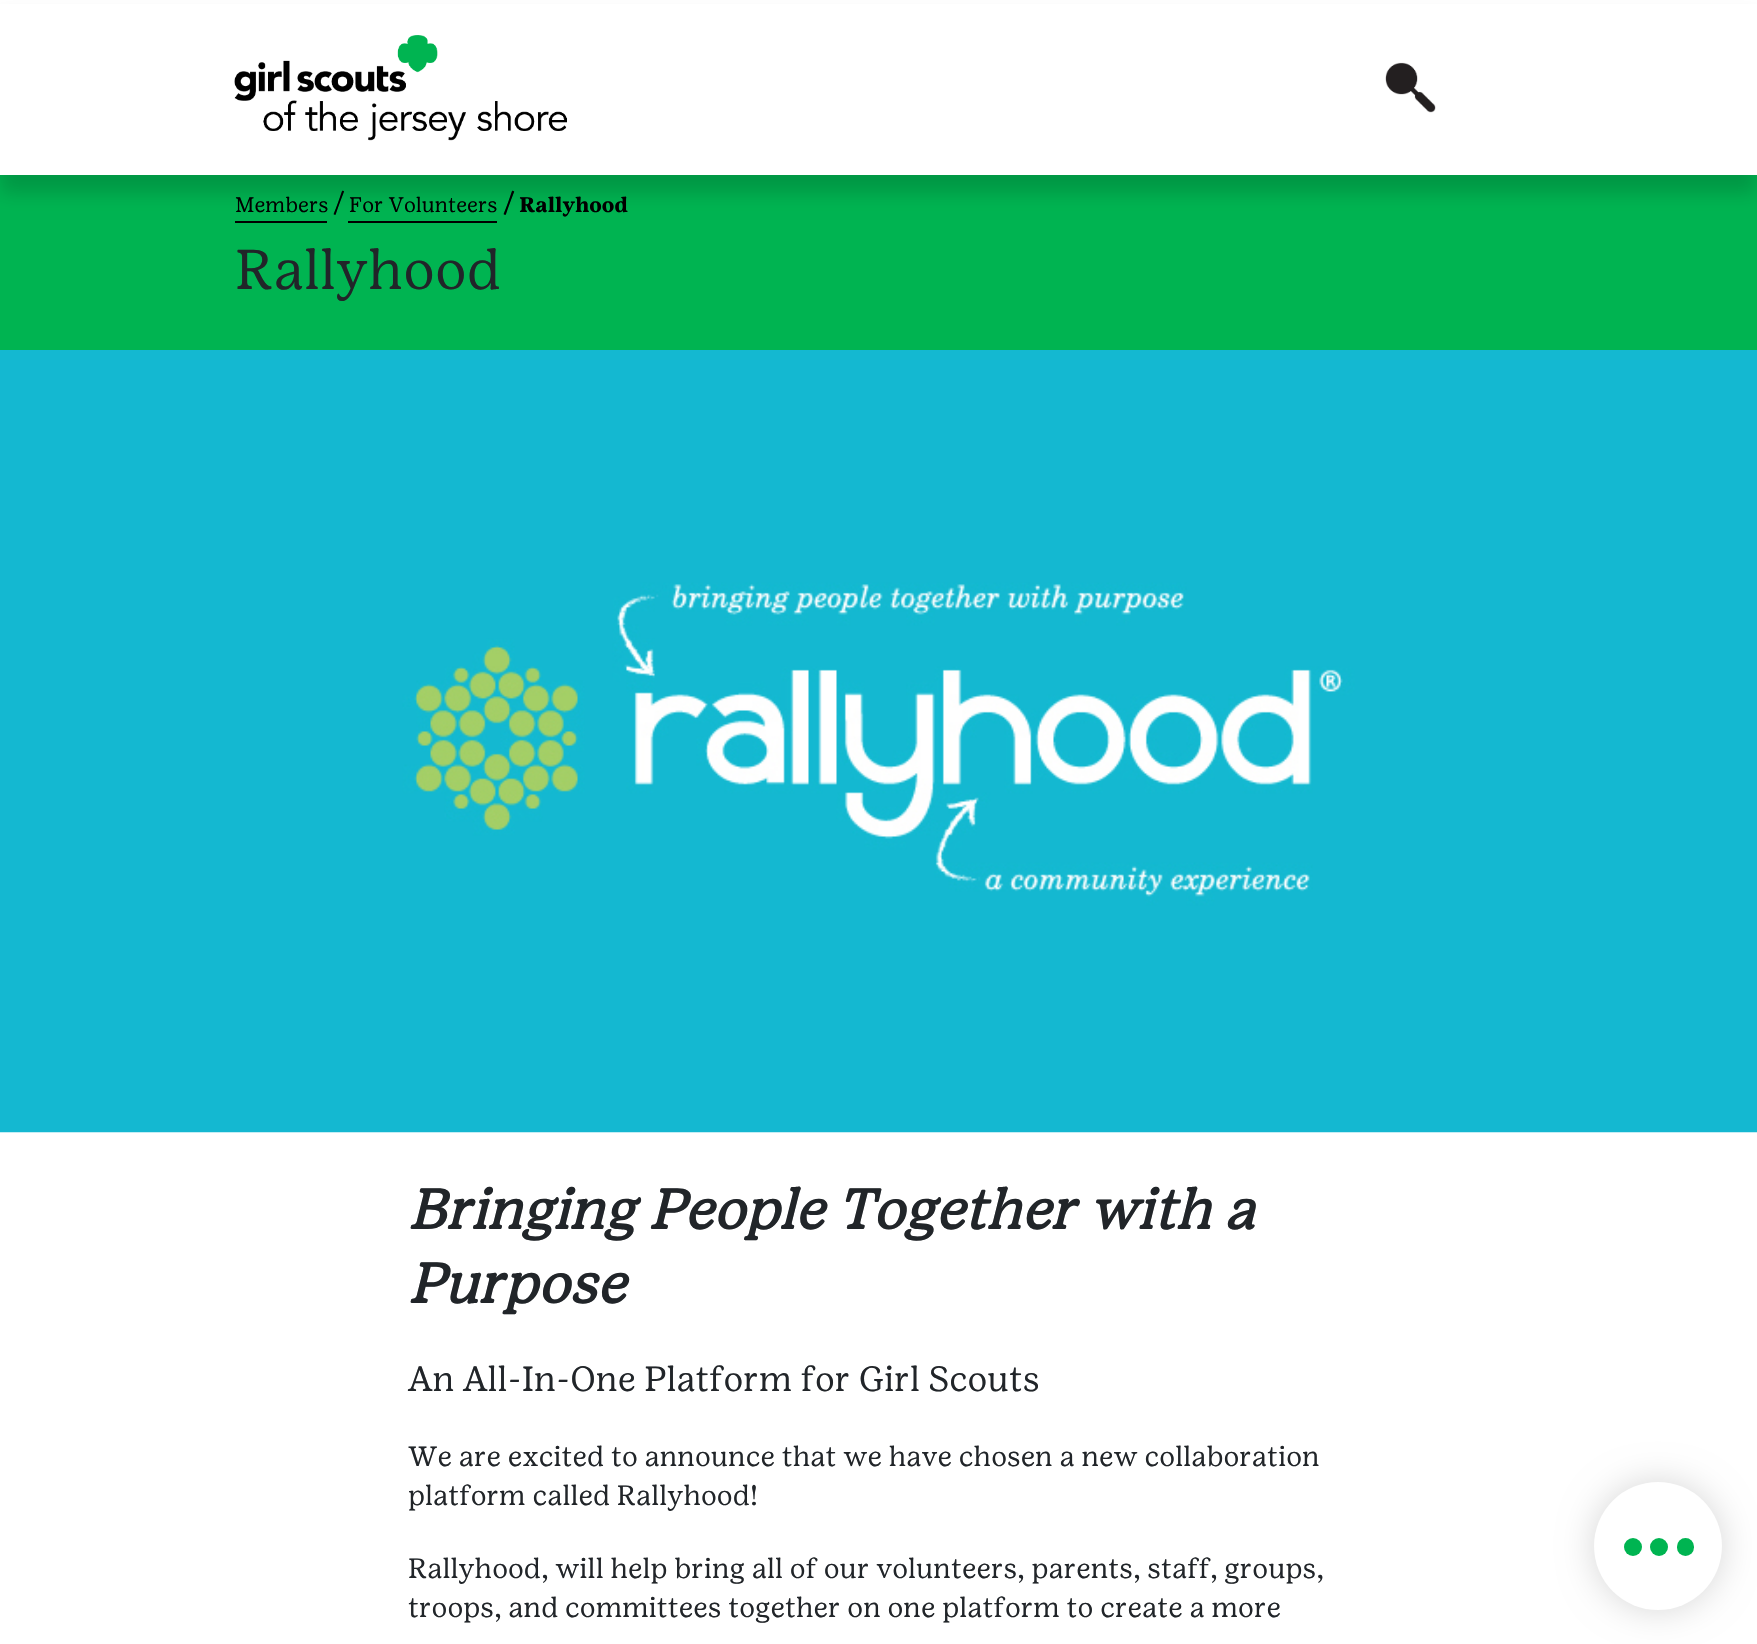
void draw(SkCanvas* canvas) {
  SkPaint paint;
  paint.setAntiAlias(true);
  auto face = [&](const char* family, int weight, float size, bool italic = false) {
    SkFontStyle style(weight, SkFontStyle::kNormal_Width,
      italic ? SkFontStyle::kItalic_Slant : SkFontStyle::kUpright_Slant);
    SkFont result(fontMgr->matchFamilyStyle(family, style), size);
    result.setSubpixel(true);
    return result;
  };
  auto paste = [&](const char* path, float x, float y, float w, float h) {
    auto image = SkImages::DeferredFromEncodedData(SkData::MakeFromFileName(path));
    canvas->drawImageRect(image, SkRect::MakeXYWH(x, y, w, h), SkSamplingOptions());
  };
  canvas->clear(0xffffffff);
  paint.setColor(0xff00b451);
  canvas->drawRect(SkRect::MakeXYWH(0, 175, 1757, 175), paint);
  paint.setColor(0x29000000);
  paint.setMaskFilter(SkMaskFilter::MakeBlur(kNormal_SkBlurStyle, 9));
  canvas->drawRect(SkRect::MakeXYWH(0, 18, 1757, 175), paint);
  paint.setMaskFilter(nullptr);
  paint.setColor(0xffffffff);
  canvas->drawRect(SkRect::MakeXYWH(0, 4, 1757, 171), paint);
  paste("img/1.png", 234, 35, 333, 106);
  paste("img/2.png", 1385, 62, 51, 51);
  paint.setColor(0xff000000);
  canvas->drawRect(SkRect::MakeXYWH(235, 221, 92, 2), paint);
  canvas->drawRect(SkRect::MakeXYWH(348, 221, 149, 2), paint);
  paste("img/3.png", 0, 350, 1757, 783);
  paint.setColor(0x29000000);
  paint.setMaskFilter(SkMaskFilter::MakeBlur(kNormal_SkBlurStyle, 17.5f));
  canvas->drawRoundRect(SkRect::MakeXYWH(1594, 1482, 128, 128), 64, 64, paint);
  paint.setMaskFilter(nullptr);
  paint.setColor(0xffffffff);
  canvas->drawCircle(1658, 1546, 64, paint);
  paint.setColor(0xff00b451);
  canvas->drawRoundRect(SkRect::MakeXYWH(1677, 1538, 17, 18), 8.5f, 8.5f, paint);
  canvas->drawCircle(1659, 1547, 9, paint);
  canvas->drawCircle(1633, 1547, 9, paint);
  auto f0 = face("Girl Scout", 400, 21);
  paint.setColor(0xff000000);
  canvas->drawString("Members", 235, 212, f0, paint);
  auto f1 = face("Girl Scout", 400, 28);
  canvas->drawString("/", 333, 212, f1, paint);
  canvas->drawString("For Volunteers", 349, 212, f0, paint);
  auto f2 = face("Girl Scout", 700, 28);
  canvas->drawString("/", 503, 212, f2, paint);
  auto f3 = face("Girl Scout", 700, 21);
  canvas->drawString("Rallyhood", 519, 212, f3, paint);
  auto f4 = face("Girl Scout", 400, 56);
  paint.setColor(0xff212529);
  canvas->drawString("Rallyhood", 235, 289, f4, paint);
  auto f5 = face("Girl Scout", 700, 56, true);
  canvas->drawString("Bringing People Together with a", 408, 1229, f5, paint);
  canvas->drawString("Purpose", 408, 1303, f5, paint);
  auto f6 = face("Girl Scout", 400, 35);
  canvas->drawString("An All-In-One Platform for Girl Scouts", 408, 1391, f6, paint);
  {
    const struct { const char* s; float x, y; } items[] = {
      {"We are excited to announce that we have chosen a new collaboration", 408, 1466},
      {"platform called Rallyhood!", 408, 1505},
      {"Rallyhood, will help bring all of our volunteers, parents, staff, groups,", 408, 1578},
      {"troops, and committees together on one platform to create a more", 408, 1617},
    };
    for (auto [s, x, y] : items) {
      canvas->drawString(s, x, y, f1, paint);
    }
  }
}
